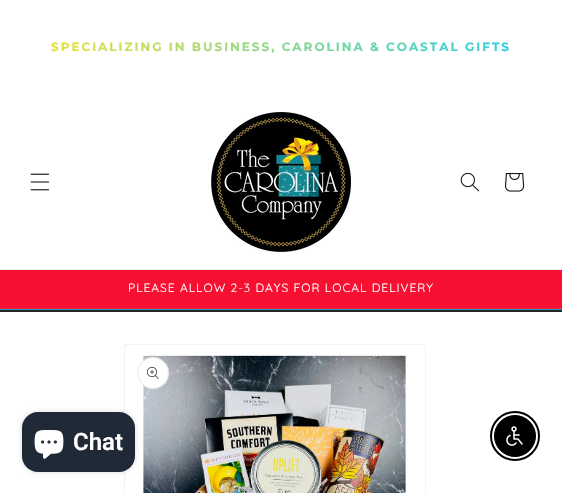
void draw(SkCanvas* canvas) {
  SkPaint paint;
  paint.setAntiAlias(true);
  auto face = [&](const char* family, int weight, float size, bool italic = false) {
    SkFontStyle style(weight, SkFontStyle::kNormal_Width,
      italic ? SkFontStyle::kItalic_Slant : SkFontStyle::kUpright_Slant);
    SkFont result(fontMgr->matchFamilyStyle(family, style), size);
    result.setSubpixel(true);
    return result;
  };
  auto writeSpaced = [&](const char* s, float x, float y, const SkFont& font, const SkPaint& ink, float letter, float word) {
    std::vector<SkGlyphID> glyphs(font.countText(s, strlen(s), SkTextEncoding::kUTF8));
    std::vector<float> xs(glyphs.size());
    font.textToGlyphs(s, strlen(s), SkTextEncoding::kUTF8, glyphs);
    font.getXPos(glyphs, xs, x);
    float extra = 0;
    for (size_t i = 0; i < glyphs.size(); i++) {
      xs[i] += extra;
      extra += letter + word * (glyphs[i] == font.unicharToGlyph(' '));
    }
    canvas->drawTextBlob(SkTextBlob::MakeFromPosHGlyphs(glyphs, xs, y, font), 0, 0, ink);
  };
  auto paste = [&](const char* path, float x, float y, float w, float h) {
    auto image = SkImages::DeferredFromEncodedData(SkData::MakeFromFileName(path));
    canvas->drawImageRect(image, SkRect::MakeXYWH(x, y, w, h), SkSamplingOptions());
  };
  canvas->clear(0xffffffff);
  paint.setColor(0xffececec);
  canvas->drawRect(SkRect::MakeXYWH(0, 269, 562, 1), paint);
  paste("img/1.png", 30, 173, 20, 18);
  paste("img/2.png", 211, 112, 140, 140);
  paste("img/3.png", 460, 172, 19, 20);
  paste("img/4.png", 505, 173, 20, 19);
  {
    const struct { float x, y, w, h; SkColor color; } items[] = {
      {0, 270, 562, 38, 0xfff71031},
      {0, 308, 562, 1, 0xfff82341},
      {0, 309, 562, 1, 0xff169cb9},
      {0, 310, 562, 2, 0xff252525},
    };
    for (auto [x, y, w, h, color] : items) {
      paint.setColor(color);
      canvas->drawRect(SkRect::MakeXYWH(x, y, w, h), paint);
    }
  }
  paint.setStroke(true);
  paint.setStrokeWidth(1);
  paint.setColor(0xfff3f3f3);
  canvas->drawRect(SkRect::MakeXYWH(124.5f, 344.5f, 301, 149), paint);
  paste("img/6.png", 143, 355, 264, 138);
  paint.setStroke(false);
  paint.setColor(0x26000000);
  paint.setMaskFilter(SkMaskFilter::MakeBlur(kNormal_SkBlurStyle, 2.5f));
  canvas->drawRoundRect(SkRect::MakeXYWH(22, 412, 113, 60), 16, 16, paint);
  paint.setMaskFilter(nullptr);
  paint.setColor(0xff202a36);
  canvas->drawRoundRect(SkRect::MakeXYWH(22, 412, 113, 60), 16, 16, paint);
  paste("img/5.png", 34, 430, 30, 29);
  paint.setColor(0xffffffff);
  canvas->drawCircle(153, 373, 16, paint);
  paint.setStroke(true);
  paint.setColor(0x1a121212);
  canvas->drawCircle(153, 373, 15.5f, paint);
  paste("img/7.png", 147, 367, 12, 12);
  paint.setStrokeWidth(2);
  paint.setColor(0xff000000);
  canvas->drawCircle(515, 436, 24, paint);
  paint.setStroke(false);
  canvas->drawCircle(515, 436, 20.5f, paint);
  paint.setStroke(true);
  paint.setStrokeWidth(1);
  canvas->drawCircle(515, 436, 20.5f, paint);
  paste("img/8.png", 506, 426, 17, 20);
  auto f0 = face("Montserrat", 700, 12);
  paint.setStroke(false);
  {
    const SkColor colors[] = {0xfff7e22f, 0xff22cef1};
    const float stops[] = {0, 1};
    const SkPoint ends[] = {{147, -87}, {415, 181}};
    paint.setShader(SkGradientShader::MakeLinear(ends, colors, stops, 2, SkTileMode::kClamp));
    paint.setAlpha(255);
  }
  writeSpaced("SPECIALIZING IN BUSINESS, CAROLINA & COASTAL GIFTS", 51, 51, f0, paint, 2, 0);
  auto f1 = face("Quicksand", 400, 12);
  paint.setShader(nullptr);
  paint.setColor(0xffffffff);
  writeSpaced("PLEASE ALLOW 2-3 DAYS FOR LOCAL DELIVERY", 128, 292, f1, paint, 1, 0);
  auto f2 = face("Roboto", 600, 24);
  canvas->drawString("Chat", 73, 450, f2, paint);
}
